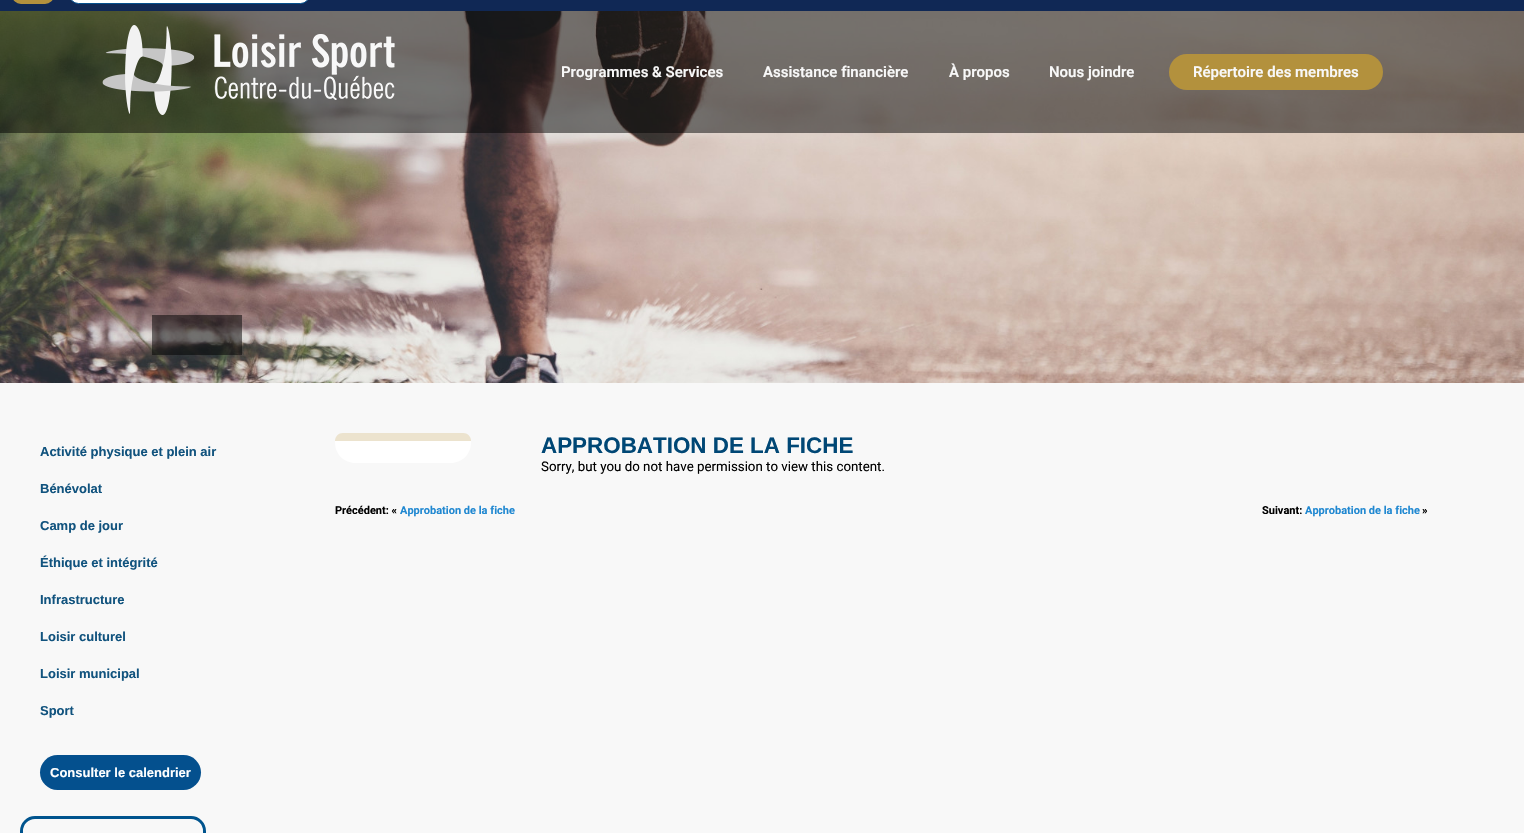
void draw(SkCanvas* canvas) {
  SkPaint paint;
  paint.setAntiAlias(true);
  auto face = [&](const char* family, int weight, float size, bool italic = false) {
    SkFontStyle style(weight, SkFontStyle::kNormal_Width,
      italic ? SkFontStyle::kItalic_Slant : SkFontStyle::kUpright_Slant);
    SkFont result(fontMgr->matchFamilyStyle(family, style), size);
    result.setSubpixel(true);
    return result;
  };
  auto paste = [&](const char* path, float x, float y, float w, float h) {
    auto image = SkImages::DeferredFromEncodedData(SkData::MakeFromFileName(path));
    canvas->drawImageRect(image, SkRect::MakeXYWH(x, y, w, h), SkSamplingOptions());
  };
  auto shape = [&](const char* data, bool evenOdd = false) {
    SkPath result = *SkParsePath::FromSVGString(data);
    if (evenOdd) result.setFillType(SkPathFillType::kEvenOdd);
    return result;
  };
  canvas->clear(0xfff8f8f8);
  paint.setColor(0xff102855);
  canvas->drawRect(SkRect::MakeXYWH(0, 0, 1524, 11), paint);
  paint.setColor(0xffb3913d);
  canvas->drawRoundRect(SkRect::MakeXYWH(12, -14, 42, 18), 13.5f, 13.5f, paint);
  paint.setColor(0xffffffff);
  canvas->drawRoundRect(SkRect::MakeXYWH(69.5f, -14.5f, 240, 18), 13, 13, paint);
  paint.setStroke(true);
  paint.setStrokeWidth(1);
  paint.setColor(0xff04508e);
  canvas->drawRoundRect(SkRect::MakeXYWH(69.5f, -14.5f, 240, 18), 13, 13, paint);
  paste("img/1.png", 0, 11, 1524, 372);
  paint.setStroke(false);
  paint.setColor(0x80000000);
  canvas->drawRect(SkRect::MakeXYWH(152, 315, 90, 40), paint);
  canvas->drawRect(SkRect::MakeXYWH(0, 11, 1524, 122), paint);
  paste("img/2.png", 102, 25, 293, 90);
  paint.setColor(0xffb3913d);
  canvas->drawRoundRect(SkRect::MakeXYWH(1169, 54, 214, 36), 18, 18, paint);
  paint.setColor(0xff04508e);
  canvas->drawRoundRect(SkRect::MakeXYWH(40, 755, 161, 35), 17.5f, 17.5f, paint);
  paint.setStroke(true);
  paint.setStrokeWidth(3);
  paint.setColor(0xff00548e);
  canvas->drawRoundRect(SkRect::MakeXYWH(21.5f, 817.5f, 183, 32), 13.5f, 13.5f, paint);
  paint.setStroke(false);
  paint.setColor(0xffece3ce);
  canvas->drawPath(shape("M343 433H463C467.5 433 471 436.5 471 441H335C335 436.5 338.5 433 343 433Z"), paint);
  paint.setColor(0xffffffff);
  canvas->drawPath(shape("M335 441H471V443C471 454 462 463 451 463H355C344 463 335 454 335 443Z"), paint);
  auto f0 = face("Roboto", 600, 15);
  paint.setColor(0xfff8f8f8);
  {
    const struct { const char* s; float x, y; } items[] = {
      {"Programmes & Services", 561, 77},
      {"Assistance financière", 763, 77},
      {"À propos", 949, 77},
      {"Nous joindre", 1049, 77},
      {"Répertoire des membres", 1193, 77},
    };
    for (auto [s, x, y] : items) {
      canvas->drawString(s, x, y, f0, paint);
    }
  }
  auto f1 = face("Liberation Sans", 700, 13);
  paint.setColor(0xff11537e);
  {
    const struct { const char* s; float x, y; } items[] = {
      {"Activité physique et plein air", 40, 456},
      {"Bénévolat", 40, 493},
      {"Camp de jour", 40, 530},
      {"Éthique et intégrité", 40, 567},
      {"Infrastructure", 40, 604},
      {"Loisir culturel", 40, 641},
      {"Loisir municipal", 40, 678},
      {"Sport", 40, 715},
    };
    for (auto [s, x, y] : items) {
      canvas->drawString(s, x, y, f1, paint);
    }
  }
  paint.setColor(0xffffffff);
  canvas->drawString("Consulter le calendrier", 50, 777, f1, paint);
  auto f2 = face("Liberation Sans", 700, 22.4f);
  paint.setColor(0xff004775);
  canvas->drawString("APPROBATION DE LA FICHE", 541, 453, f2, paint);
  auto f3 = face("Roboto", 400, 13.3f);
  paint.setColor(0xff000000);
  canvas->drawString("Sorry, but you do not have permission to view this content.", 541, 471, f3, paint);
  auto f4 = face("Roboto", 700, 11);
  canvas->drawString("Précédent: «", 335, 514, f4, paint);
  paint.setColor(0xff2088d1);
  canvas->drawString("Approbation de la fiche", 400, 514, f4, paint);
  paint.setColor(0xff000000);
  canvas->drawString("Suivant:", 1262, 514, f4, paint);
  paint.setColor(0xff2088d1);
  canvas->drawString("Approbation de la fiche", 1305, 514, f4, paint);
  paint.setColor(0xff000000);
  canvas->drawString("»", 1422, 514, f4, paint);
}
